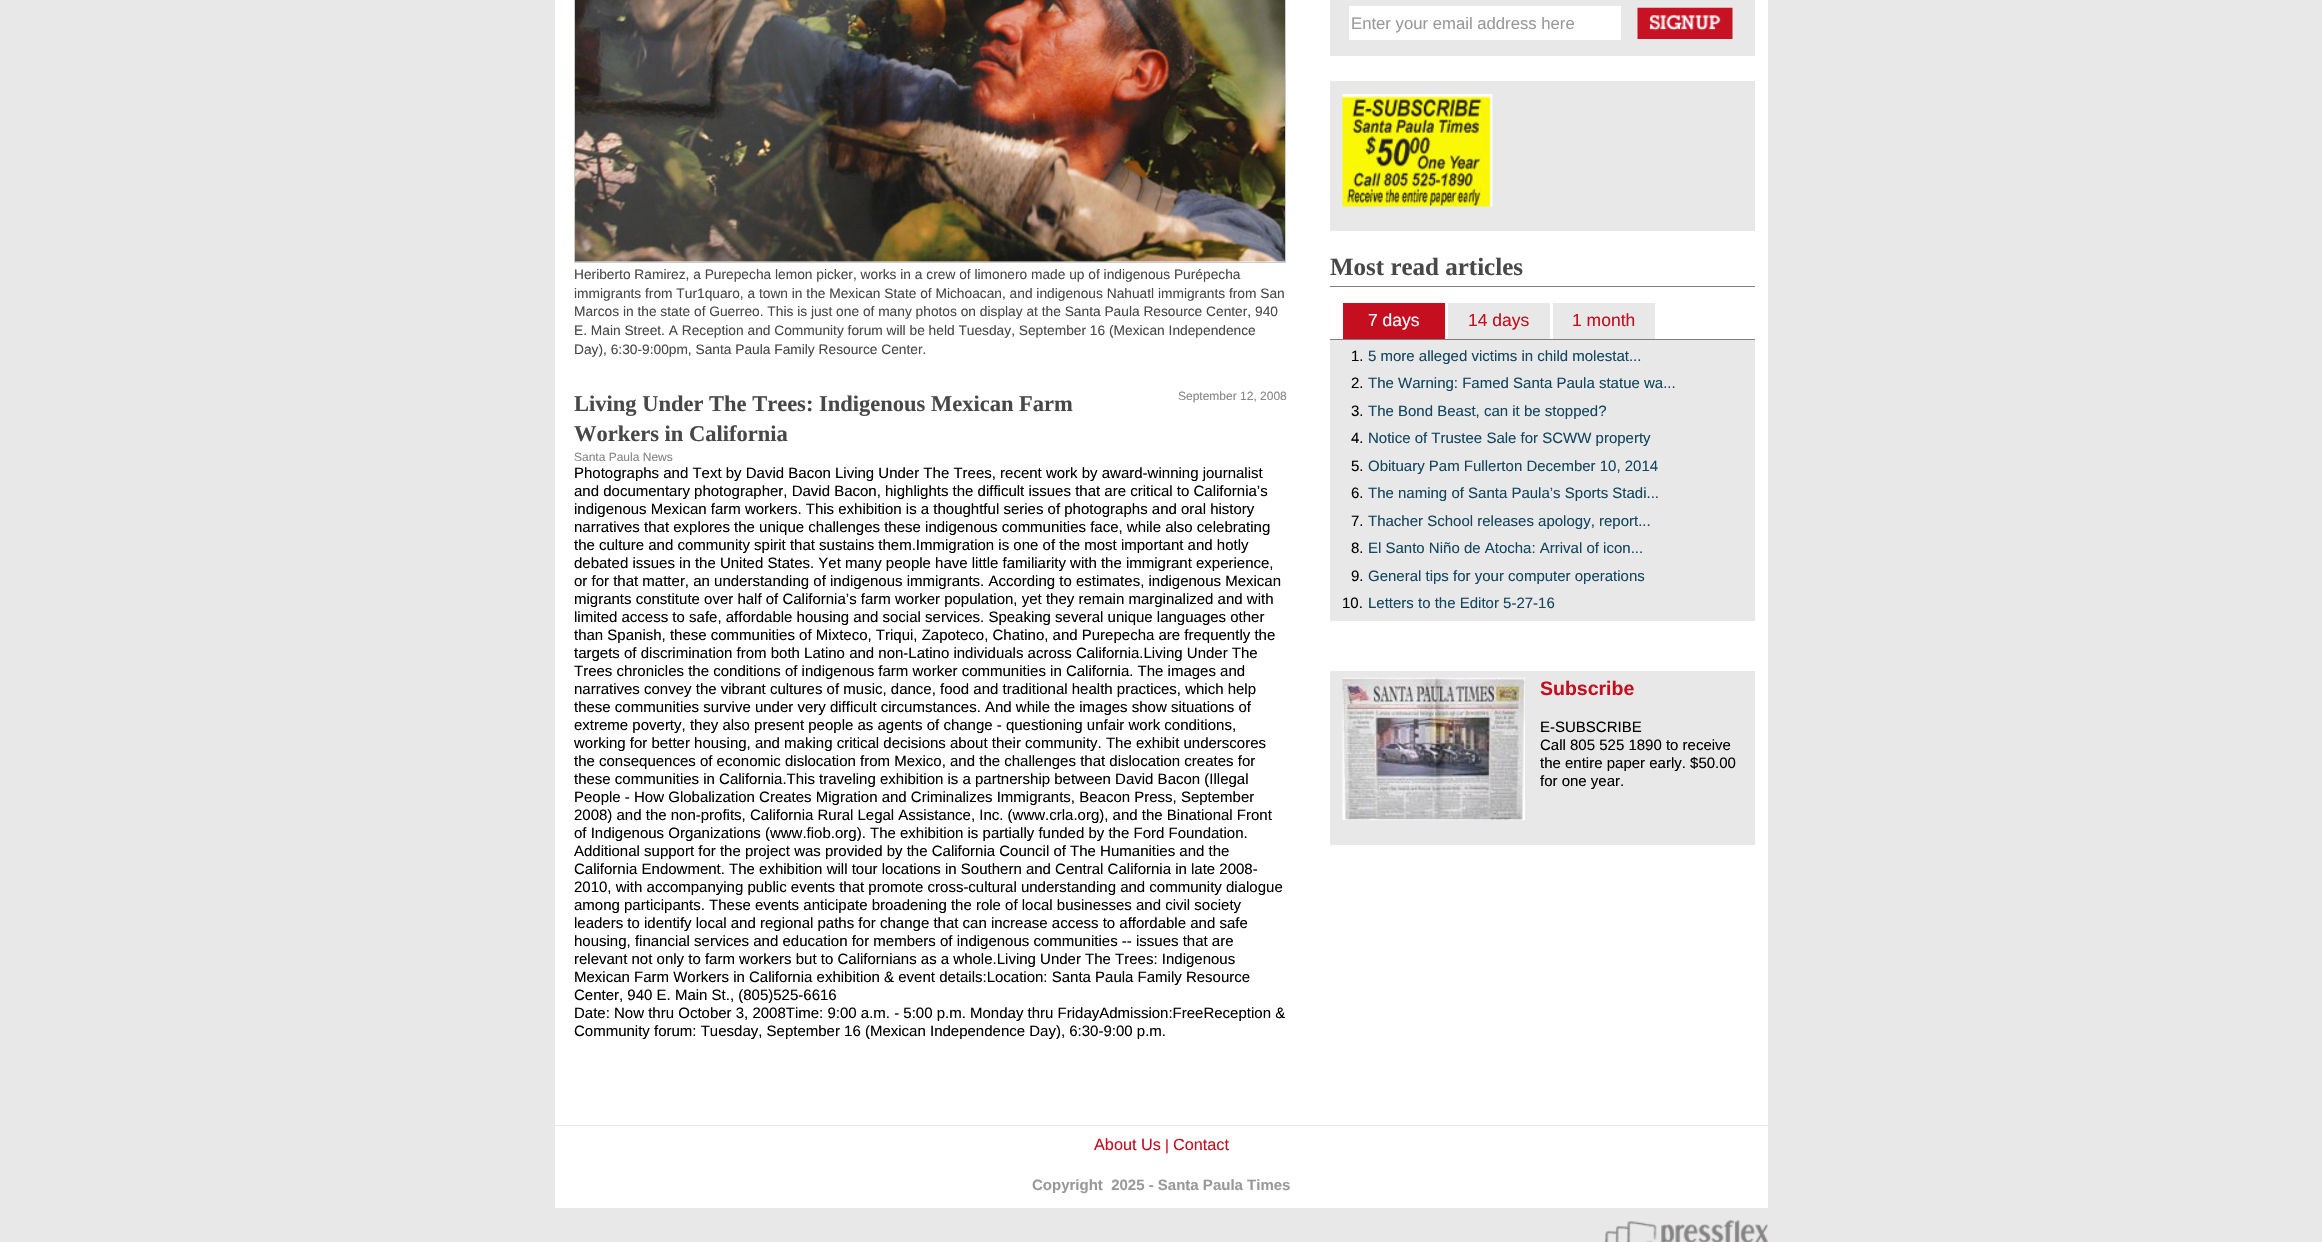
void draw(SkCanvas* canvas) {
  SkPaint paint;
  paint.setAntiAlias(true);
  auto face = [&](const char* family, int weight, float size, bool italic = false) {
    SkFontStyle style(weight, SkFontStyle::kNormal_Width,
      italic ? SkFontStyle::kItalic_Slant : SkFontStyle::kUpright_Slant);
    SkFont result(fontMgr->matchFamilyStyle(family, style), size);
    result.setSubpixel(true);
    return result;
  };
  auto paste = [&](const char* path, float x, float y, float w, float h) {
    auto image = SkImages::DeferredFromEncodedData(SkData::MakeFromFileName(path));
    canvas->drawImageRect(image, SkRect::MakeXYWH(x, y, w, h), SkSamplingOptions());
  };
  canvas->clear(0xffe8e8e8);
  paint.setColor(0xffffffff);
  canvas->drawRect(SkRect::MakeXYWH(555, 0, 1213, 1208), paint);
  paint.setStroke(true);
  paint.setStrokeWidth(1);
  paint.setColor(0xffcccccc);
  canvas->drawRect(SkRect::MakeXYWH(574.5f, -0.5f, 711, 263), paint);
  paste("img/1.png", 575, 0, 710, 262);
  paint.setStroke(false);
  paint.setColor(0xffe8e8e8);
  canvas->drawRect(SkRect::MakeXYWH(1330, 0, 425, 56), paint);
  paint.setColor(0xffffffff);
  canvas->drawRect(SkRect::MakeXYWH(1349, 6, 272, 34), paint);
  paste("img/2.png", 1637, 7, 96, 32);
  paint.setColor(0xffe8e8e8);
  canvas->drawRect(SkRect::MakeXYWH(1330, 81, 425, 150), paint);
  paste("img/3.png", 1342, 94, 151, 113);
  {
    const struct { float x, y, w, h; SkColor color; } items[] = {
      {1330, 286, 425, 1, 0xff7f7f7f},
      {1343, 303, 102, 36, 0xffc50e1f},
      {1448, 303, 102, 36, 0xffe8e8e8},
      {1553, 303, 102, 36, 0xffe8e8e8},
      {1330, 340, 425, 281, 0xffe8e8e8},
      {1330, 339, 425, 1, 0xff7f7f7f},
      {1330, 671, 425, 174, 0xffe8e8e8},
    };
    for (auto [x, y, w, h, color] : items) {
      paint.setColor(color);
      canvas->drawRect(SkRect::MakeXYWH(x, y, w, h), paint);
    }
  }
  paste("img/4.png", 1342, 677, 183, 144);
  canvas->drawRect(SkRect::MakeXYWH(555, 1125, 1213, 1), paint);
  paste("img/5.png", 1605, 1220, 163, 22);
  auto f0 = face("Liberation Sans", 400, 13.75f);
  paint.setColor(0xff484848);
  {
    const struct { const char* s; float x, y; } items[] = {
      {"Heriberto Ramirez, a Purepecha lemon picker, works in a crew of limonero made up of indigenous Purépecha", 574, 279},
      {"immigrants from Tur1quaro, a town in the Mexican State of Michoacan, and indigenous Nahuatl immigrants from San", 574, 298},
      {"Marcos in the state of Guerreo. This is just one of many photos on display at the Santa Paula Resource Center, 940", 574, 316},
      {"E. Main Street. A Reception and Community forum will be held Tuesday, September 16 (Mexican Independence", 574, 335},
      {"Day), 6:30-9:00pm, Santa Paula Family Resource Center.", 574, 354},
    };
    for (auto [s, x, y] : items) {
      canvas->drawString(s, x, y, f0, paint);
    }
  }
  auto f1 = face("Liberation Serif", 700, 22.5f);
  canvas->drawString("Living Under The Trees: Indigenous Mexican Farm", 574, 411, f1, paint);
  canvas->drawString("Workers in California", 574, 441, f1, paint);
  auto f2 = face("Liberation Sans", 400, 12);
  paint.setColor(0xff858585);
  canvas->drawString("September 12, 2008", 1178, 400, f2, paint);
  canvas->drawString("Santa Paula News", 574, 461, f2, paint);
  auto f3 = face("Liberation Sans", 400, 15);
  paint.setColor(0xff000000);
  {
    const struct { const char* s; float x, y; } items[] = {
      {"Photographs and Text by David Bacon Living Under The Trees, recent work by award-winning journalist", 574, 478},
      {"and documentary photographer, David Bacon, highlights the difficult issues that are critical to California’s", 574, 496},
      {"indigenous Mexican farm workers. This exhibition is a thoughtful series of photographs and oral history", 574, 514},
      {"narratives that explores the unique challenges these indigenous communities face, while also celebrating", 574, 532},
      {"the culture and community spirit that sustains them.Immigration is one of the most important and hotly", 574, 550},
      {"debated issues in the United States. Yet many people have little familiarity with the immigrant experience,", 574, 568},
      {"or for that matter, an understanding of indigenous immigrants. According to estimates, indigenous Mexican", 574, 586},
      {"migrants constitute over half of California’s farm worker population, yet they remain marginalized and with", 574, 604},
      {"limited access to safe, affordable housing and social services. Speaking several unique languages other", 574, 622},
      {"than Spanish, these communities of Mixteco, Triqui, Zapoteco, Chatino, and Purepecha are frequently the", 574, 640},
      {"targets of discrimination from both Latino and non-Latino individuals across California.Living Under The", 574, 658},
      {"Trees chronicles the conditions of indigenous farm worker communities in California. The images and", 574, 676},
      {"narratives convey the vibrant cultures of music, dance, food and traditional health practices, which help", 574, 694},
      {"these communities survive under very difficult circumstances. And while the images show situations of", 574, 712},
      {"extreme poverty, they also present people as agents of change - questioning unfair work conditions,", 574, 730},
      {"working for better housing, and making critical decisions about their community. The exhibit underscores", 574, 748},
      {"the consequences of economic dislocation from Mexico, and the challenges that dislocation creates for", 574, 766},
      {"these communities in California.This traveling exhibition is a partnership between David Bacon (Illegal", 574, 784},
      {"People - How Globalization Creates Migration and Criminalizes Immigrants, Beacon Press, September", 574, 802},
      {"2008) and the non-profits, California Rural Legal Assistance, Inc. (www.crla.org), and the Binational Front", 574, 820},
      {"of Indigenous Organizations (www.fiob.org). The exhibition is partially funded by the Ford Foundation.", 574, 838},
      {"Additional support for the project was provided by the California Council of The Humanities and the", 574, 856},
      {"California Endowment. The exhibition will tour locations in Southern and Central California in late 2008-", 574, 874},
      {"2010, with accompanying public events that promote cross-cultural understanding and community dialogue", 574, 892},
      {"among participants. These events anticipate broadening the role of local businesses and civil society", 574, 910},
      {"leaders to identify local and regional paths for change that can increase access to affordable and safe", 574, 928},
      {"housing, financial services and education for members of indigenous communities -- issues that are", 574, 946},
      {"relevant not only to farm workers but to Californians as a whole.Living Under The Trees: Indigenous", 574, 964},
      {"Mexican Farm Workers in California exhibition & event details:Location: Santa Paula Family Resource", 574, 982},
      {"Center, 940 E. Main St., (805)525-6616", 574, 1000},
      {"Date: Now thru October 3, 2008Time: 9:00 a.m. - 5:00 p.m. Monday thru FridayAdmission:FreeReception &", 574, 1018},
      {"Community forum: Tuesday, September 16 (Mexican Independence Day), 6:30-9:00 p.m.", 574, 1036},
    };
    for (auto [s, x, y] : items) {
      canvas->drawString(s, x, y, f3, paint);
    }
  }
  auto f4 = face("Liberation Sans", 400, 16.7f);
  paint.setColor(0xff999999);
  canvas->drawString("Enter your email address here", 1351, 29, f4, paint);
  auto f5 = face("Liberation Serif", 700, 25);
  paint.setColor(0xff484848);
  canvas->drawString("Most read articles", 1330, 275, f5, paint);
  auto f6 = face("Liberation Sans", 400, 17.5f);
  paint.setColor(0xffffffff);
  canvas->drawString("7 days", 1368, 326, f6, paint);
  paint.setColor(0xffc50e1f);
  canvas->drawString("14 days", 1468, 326, f6, paint);
  canvas->drawString("1 month", 1572, 326, f6, paint);
  paint.setColor(0xff000000);
  canvas->drawString("1.", 1351, 361, f3, paint);
  paint.setColor(0xff13465f);
  canvas->drawString("5 more alleged victims in child molestat...", 1368, 361, f3, paint);
  paint.setColor(0xff000000);
  canvas->drawString("2.", 1351, 388, f3, paint);
  paint.setColor(0xff13465f);
  canvas->drawString("The Warning: Famed Santa Paula statue wa...", 1368, 388, f3, paint);
  paint.setColor(0xff000000);
  canvas->drawString("3.", 1351, 416, f3, paint);
  paint.setColor(0xff13465f);
  canvas->drawString("The Bond Beast, can it be stopped?", 1368, 416, f3, paint);
  paint.setColor(0xff000000);
  canvas->drawString("4.", 1351, 443, f3, paint);
  paint.setColor(0xff13465f);
  canvas->drawString("Notice of Trustee Sale for SCWW property", 1368, 443, f3, paint);
  paint.setColor(0xff000000);
  canvas->drawString("5.", 1351, 471, f3, paint);
  paint.setColor(0xff13465f);
  canvas->drawString("Obituary Pam Fullerton December 10, 2014", 1368, 471, f3, paint);
  paint.setColor(0xff000000);
  canvas->drawString("6.", 1351, 498, f3, paint);
  paint.setColor(0xff13465f);
  canvas->drawString("The naming of Santa Paula’s Sports Stadi...", 1368, 498, f3, paint);
  paint.setColor(0xff000000);
  canvas->drawString("7.", 1351, 526, f3, paint);
  paint.setColor(0xff13465f);
  canvas->drawString("Thacher School releases apology, report...", 1368, 526, f3, paint);
  paint.setColor(0xff000000);
  canvas->drawString("8.", 1351, 553, f3, paint);
  paint.setColor(0xff13465f);
  canvas->drawString("El Santo Niño de Atocha: Arrival of icon...", 1368, 553, f3, paint);
  paint.setColor(0xff000000);
  canvas->drawString("9.", 1351, 581, f3, paint);
  paint.setColor(0xff13465f);
  canvas->drawString("General tips for your computer operations", 1368, 581, f3, paint);
  paint.setColor(0xff000000);
  canvas->drawString("10.", 1342, 608, f3, paint);
  paint.setColor(0xff13465f);
  canvas->drawString("Letters to the Editor 5-27-16", 1368, 608, f3, paint);
  auto f7 = face("Liberation Sans", 700, 19.5f);
  paint.setColor(0xffc50e1f);
  canvas->drawString("Subscribe", 1540, 695, f7, paint);
  paint.setColor(0xff000000);
  {
    const struct { const char* s; float x, y; } items[] = {
      {"E-SUBSCRIBE", 1540, 732},
      {"Call 805 525 1890 to receive", 1540, 750},
      {"the entire paper early. $50.00", 1540, 768},
      {"for one year.", 1540, 786},
    };
    for (auto [s, x, y] : items) {
      canvas->drawString(s, x, y, f3, paint);
    }
  }
  auto f8 = face("Liberation Sans", 400, 16.25f);
  paint.setColor(0xffc50e1f);
  canvas->drawString("About Us", 1094, 1150, f8, paint);
  canvas->drawString("|", 1165, 1150, f3, paint);
  canvas->drawString("Contact", 1173, 1150, f8, paint);
  auto f9 = face("Liberation Sans", 700, 15);
  paint.setColor(0xff999999);
  canvas->drawString("Copyright  2025 - Santa Paula Times", 1032, 1190, f9, paint);
}
